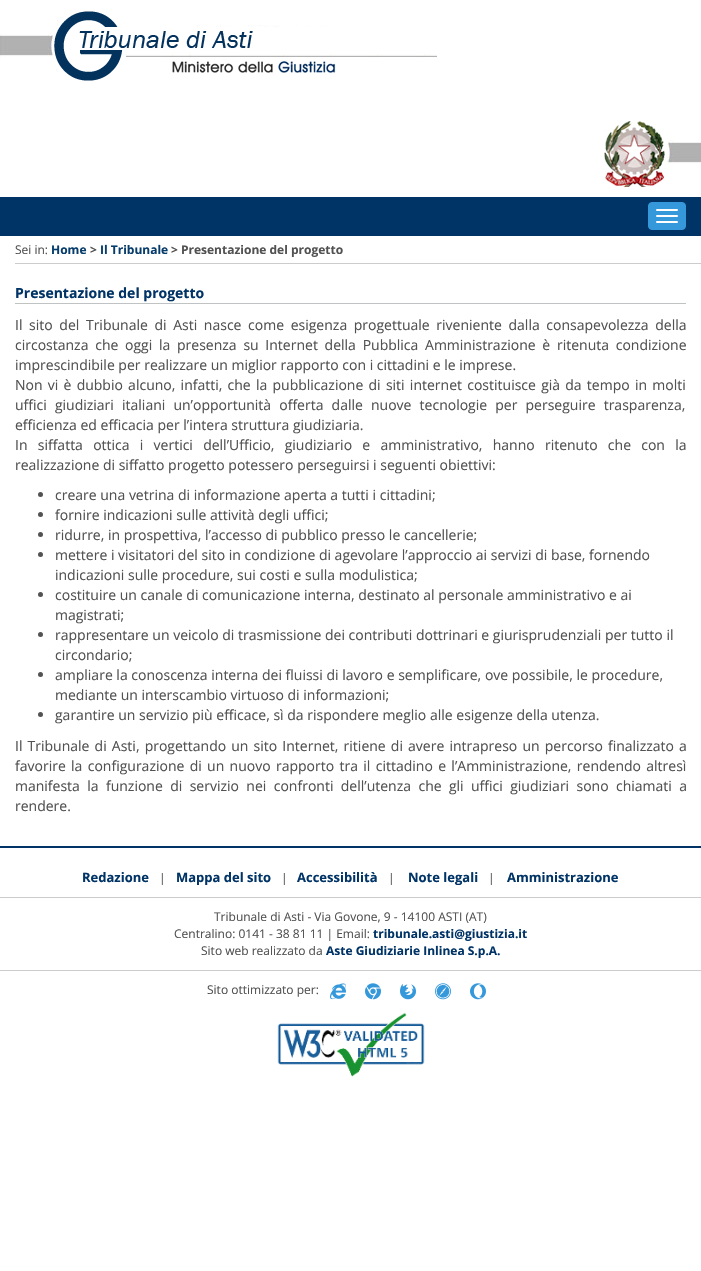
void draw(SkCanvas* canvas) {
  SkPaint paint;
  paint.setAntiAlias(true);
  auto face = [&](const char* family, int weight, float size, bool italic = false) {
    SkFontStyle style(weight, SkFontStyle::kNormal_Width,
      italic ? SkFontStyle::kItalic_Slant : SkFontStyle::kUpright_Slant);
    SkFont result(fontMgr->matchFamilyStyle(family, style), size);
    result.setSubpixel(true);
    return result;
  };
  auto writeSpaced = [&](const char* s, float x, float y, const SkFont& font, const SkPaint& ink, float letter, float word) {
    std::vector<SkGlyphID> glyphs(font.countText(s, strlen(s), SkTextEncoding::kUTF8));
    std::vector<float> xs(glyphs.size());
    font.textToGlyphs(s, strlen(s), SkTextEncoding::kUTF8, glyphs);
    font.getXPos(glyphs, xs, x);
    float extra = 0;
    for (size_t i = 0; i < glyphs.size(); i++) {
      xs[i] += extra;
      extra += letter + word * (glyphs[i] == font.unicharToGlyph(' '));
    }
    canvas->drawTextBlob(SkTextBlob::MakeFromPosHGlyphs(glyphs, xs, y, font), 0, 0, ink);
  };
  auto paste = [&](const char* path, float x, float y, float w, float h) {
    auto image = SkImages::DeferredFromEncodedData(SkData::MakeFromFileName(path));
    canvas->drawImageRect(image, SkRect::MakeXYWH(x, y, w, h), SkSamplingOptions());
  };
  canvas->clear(0xffffffff);
  paste("img/1.png", 0, 11, 437, 70);
  paste("img/2.png", 604, 120, 97, 70);
  paint.setColor(0xff003366);
  canvas->drawRect(SkRect::MakeXYWH(0, 197, 701, 39), paint);
  paint.setColor(0xff3498db);
  canvas->drawRoundRect(SkRect::MakeXYWH(648.5f, 202.5f, 37, 27), 3.5f, 3.5f, paint);
  paint.setStroke(true);
  paint.setStrokeWidth(1);
  canvas->drawRoundRect(SkRect::MakeXYWH(648.5f, 202.5f, 37, 27), 3.5f, 3.5f, paint);
  paint.setStroke(false);
  paint.setColor(0xffffffff);
  canvas->drawRoundRect(SkRect::MakeXYWH(656, 209, 22, 2), 1, 1, paint);
  canvas->drawRoundRect(SkRect::MakeXYWH(656, 215, 22, 2), 1, 1, paint);
  canvas->drawRoundRect(SkRect::MakeXYWH(656, 221, 22, 2), 1, 1, paint);
  paint.setColor(0xffcccccc);
  canvas->drawRect(SkRect::MakeXYWH(15, 263, 686, 1), paint);
  paint.setColor(0xffbfc3c3);
  canvas->drawRect(SkRect::MakeXYWH(15, 303, 671, 1), paint);
  paint.setColor(0xff525252);
  canvas->drawCircle(40.5f, 494.5f, 2.5f, paint);
  canvas->drawCircle(40.5f, 514.5f, 2.5f, paint);
  canvas->drawCircle(40.5f, 534.5f, 2.5f, paint);
  canvas->drawCircle(40.5f, 554.5f, 2.5f, paint);
  canvas->drawCircle(40.5f, 594.5f, 2.5f, paint);
  canvas->drawCircle(40.5f, 634.5f, 2.5f, paint);
  canvas->drawCircle(40.5f, 674.5f, 2.5f, paint);
  canvas->drawCircle(40.5f, 714.5f, 2.5f, paint);
  {
    const struct { float x, y, w, h; SkColor color; } items[] = {
      {0, 846, 701, 2, 0xff003366},
      {0, 897, 701, 1, 0xffcccccc},
      {0, 970, 701, 1, 0xffcccccc},
    };
    for (auto [x, y, w, h, color] : items) {
      paint.setColor(color);
      canvas->drawRect(SkRect::MakeXYWH(x, y, w, h), paint);
    }
  }
  paste("img/3.png", 330, 983, 16, 17);
  paste("img/4.png", 365, 983, 16, 17);
  paste("img/5.png", 400, 984, 16, 16);
  paste("img/6.png", 435, 983, 16, 17);
  paste("img/7.png", 470, 983, 16, 17);
  paste("img/8.png", 277, 1012, 148, 65);
  auto f0 = face("Open Sans", 400, 12);
  paint.setColor(0xff525252);
  canvas->drawString("Sei in:", 15, 254, f0, paint);
  auto f1 = face("Open Sans", 700, 12);
  paint.setColor(0xff073d6c);
  canvas->drawString("Home", 51, 254, f1, paint);
  paint.setColor(0xff525252);
  canvas->drawString(">", 90, 254, f1, paint);
  paint.setColor(0xff073d6c);
  canvas->drawString("Il Tribunale", 100, 254, f1, paint);
  paint.setColor(0xff525252);
  canvas->drawString("> Presentazione del progetto", 171, 254, f1, paint);
  auto f2 = face("Open Sans", 700, 14);
  paint.setColor(0xff003366);
  canvas->drawString("Presentazione del progetto", 15, 298, f2, paint);
  auto f3 = face("Open Sans", 400, 14);
  paint.setColor(0xff525252);
  writeSpaced("Il sito del Tribunale di Asti nasce come esigenza progettuale riveniente dalla consapevolezza della", 15, 330, f3, paint, 0, 3);
  writeSpaced("circostanza che oggi la presenza su Internet della Pubblica Amministrazione è ritenuta condizione", 15, 350, f3, paint, 0, 3.1f);
  canvas->drawString("imprescindibile per realizzare un miglior rapporto con i cittadini e le imprese.", 15, 370, f3, paint);
  writeSpaced("Non vi è dubbio alcuno, infatti, che la pubblicazione di siti internet costituisce già da tempo in molti", 15, 390, f3, paint, 0, 1.6f);
  writeSpaced("uffici giudiziari italiani un’opportunità offerta dalle nuove tecnologie per perseguire trasparenza,", 15, 410, f3, paint, 0, 4.5f);
  canvas->drawString("efficienza ed efficacia per l’intera struttura giudiziaria.", 15, 430, f3, paint);
  writeSpaced("In siffatta ottica i vertici dell’Ufficio, giudiziario e amministrativo, hanno ritenuto che con la", 15, 450, f3, paint, 0, 6.6f);
  {
    const struct { const char* s; float x, y; } items[] = {
      {"realizzazione di siffatto progetto potessero perseguirsi i seguenti obiettivi:", 15, 470},
      {"creare una vetrina di informazione aperta a tutti i cittadini;", 55, 500},
      {"fornire indicazioni sulle attività degli uffici;", 55, 520},
      {"ridurre, in prospettiva, l’accesso di pubblico presso le cancellerie;", 55, 540},
      {"mettere i visitatori del sito in condizione di agevolare l’approccio ai servizi di base, fornendo", 55, 560},
      {"indicazioni sulle procedure, sui costi e sulla modulistica;", 55, 580},
      {"costituire un canale di comunicazione interna, destinato al personale amministrativo e ai", 55, 600},
      {"magistrati;", 55, 620},
      {"rappresentare un veicolo di trasmissione dei contributi dottrinari e giurisprudenziali per tutto il", 55, 640},
      {"circondario;", 55, 660},
      {"ampliare la conoscenza interna dei fluissi di lavoro e semplificare, ove possibile, le procedure,", 55, 680},
      {"mediante un interscambio virtuoso di informazioni;", 55, 700},
      {"garantire un servizio più efficace, sì da rispondere meglio alle esigenze della utenza.", 55, 720},
    };
    for (auto [s, x, y] : items) {
      canvas->drawString(s, x, y, f3, paint);
    }
  }
  writeSpaced("Il Tribunale di Asti, progettando un sito Internet, ritiene di avere intrapreso un percorso finalizzato a", 15, 751, f3, paint, 0, 1.5f);
  writeSpaced("favorire la configurazione di un nuovo rapporto tra il cittadino e l’Amministrazione, rendendo altresì", 15, 771, f3, paint, 0, 1.7f);
  writeSpaced("manifesta la funzione di servizio nei confronti dell’utenza che gli uffici giudiziari sono chiamati a", 15, 791, f3, paint, 0, 3.75f);
  canvas->drawString("rendere.", 15, 811, f3, paint);
  auto f4 = face("Open Sans", 700, 13);
  paint.setColor(0xff003366);
  canvas->drawString("Redazione", 82, 882, f4, paint);
  paint.setColor(0xff525252);
  canvas->drawString("|", 159, 882, f0, paint);
  paint.setColor(0xff003366);
  canvas->drawString("Mappa del sito", 176, 882, f4, paint);
  paint.setColor(0xff525252);
  canvas->drawString("|", 281, 882, f0, paint);
  paint.setColor(0xff003366);
  canvas->drawString("Accessibilità", 297, 882, f4, paint);
  paint.setColor(0xff525252);
  canvas->drawString("|", 388, 882, f0, paint);
  paint.setColor(0xff003366);
  canvas->drawString("Note legali", 408, 882, f4, paint);
  paint.setColor(0xff525252);
  canvas->drawString("|", 488, 882, f0, paint);
  paint.setColor(0xff003366);
  canvas->drawString("Amministrazione", 507, 882, f4, paint);
  paint.setColor(0xff525252);
  canvas->drawString("Tribunale di Asti - Via Govone, 9 - 14100 ASTI (AT)", 214, 921, f0, paint);
  canvas->drawString("Centralino: 0141 - 38 81 11 | Email:", 174, 938, f0, paint);
  paint.setColor(0xff003366);
  canvas->drawString("tribunale.asti@giustizia.it", 373, 938, f1, paint);
  paint.setColor(0xff525252);
  canvas->drawString("Sito web realizzato da", 201, 955, f0, paint);
  paint.setColor(0xff003366);
  canvas->drawString("Aste Giudiziarie Inlinea S.p.A.", 326, 955, f1, paint);
  paint.setColor(0xff525252);
  canvas->drawString("Sito ottimizzato per:", 207, 994, f0, paint);
}
